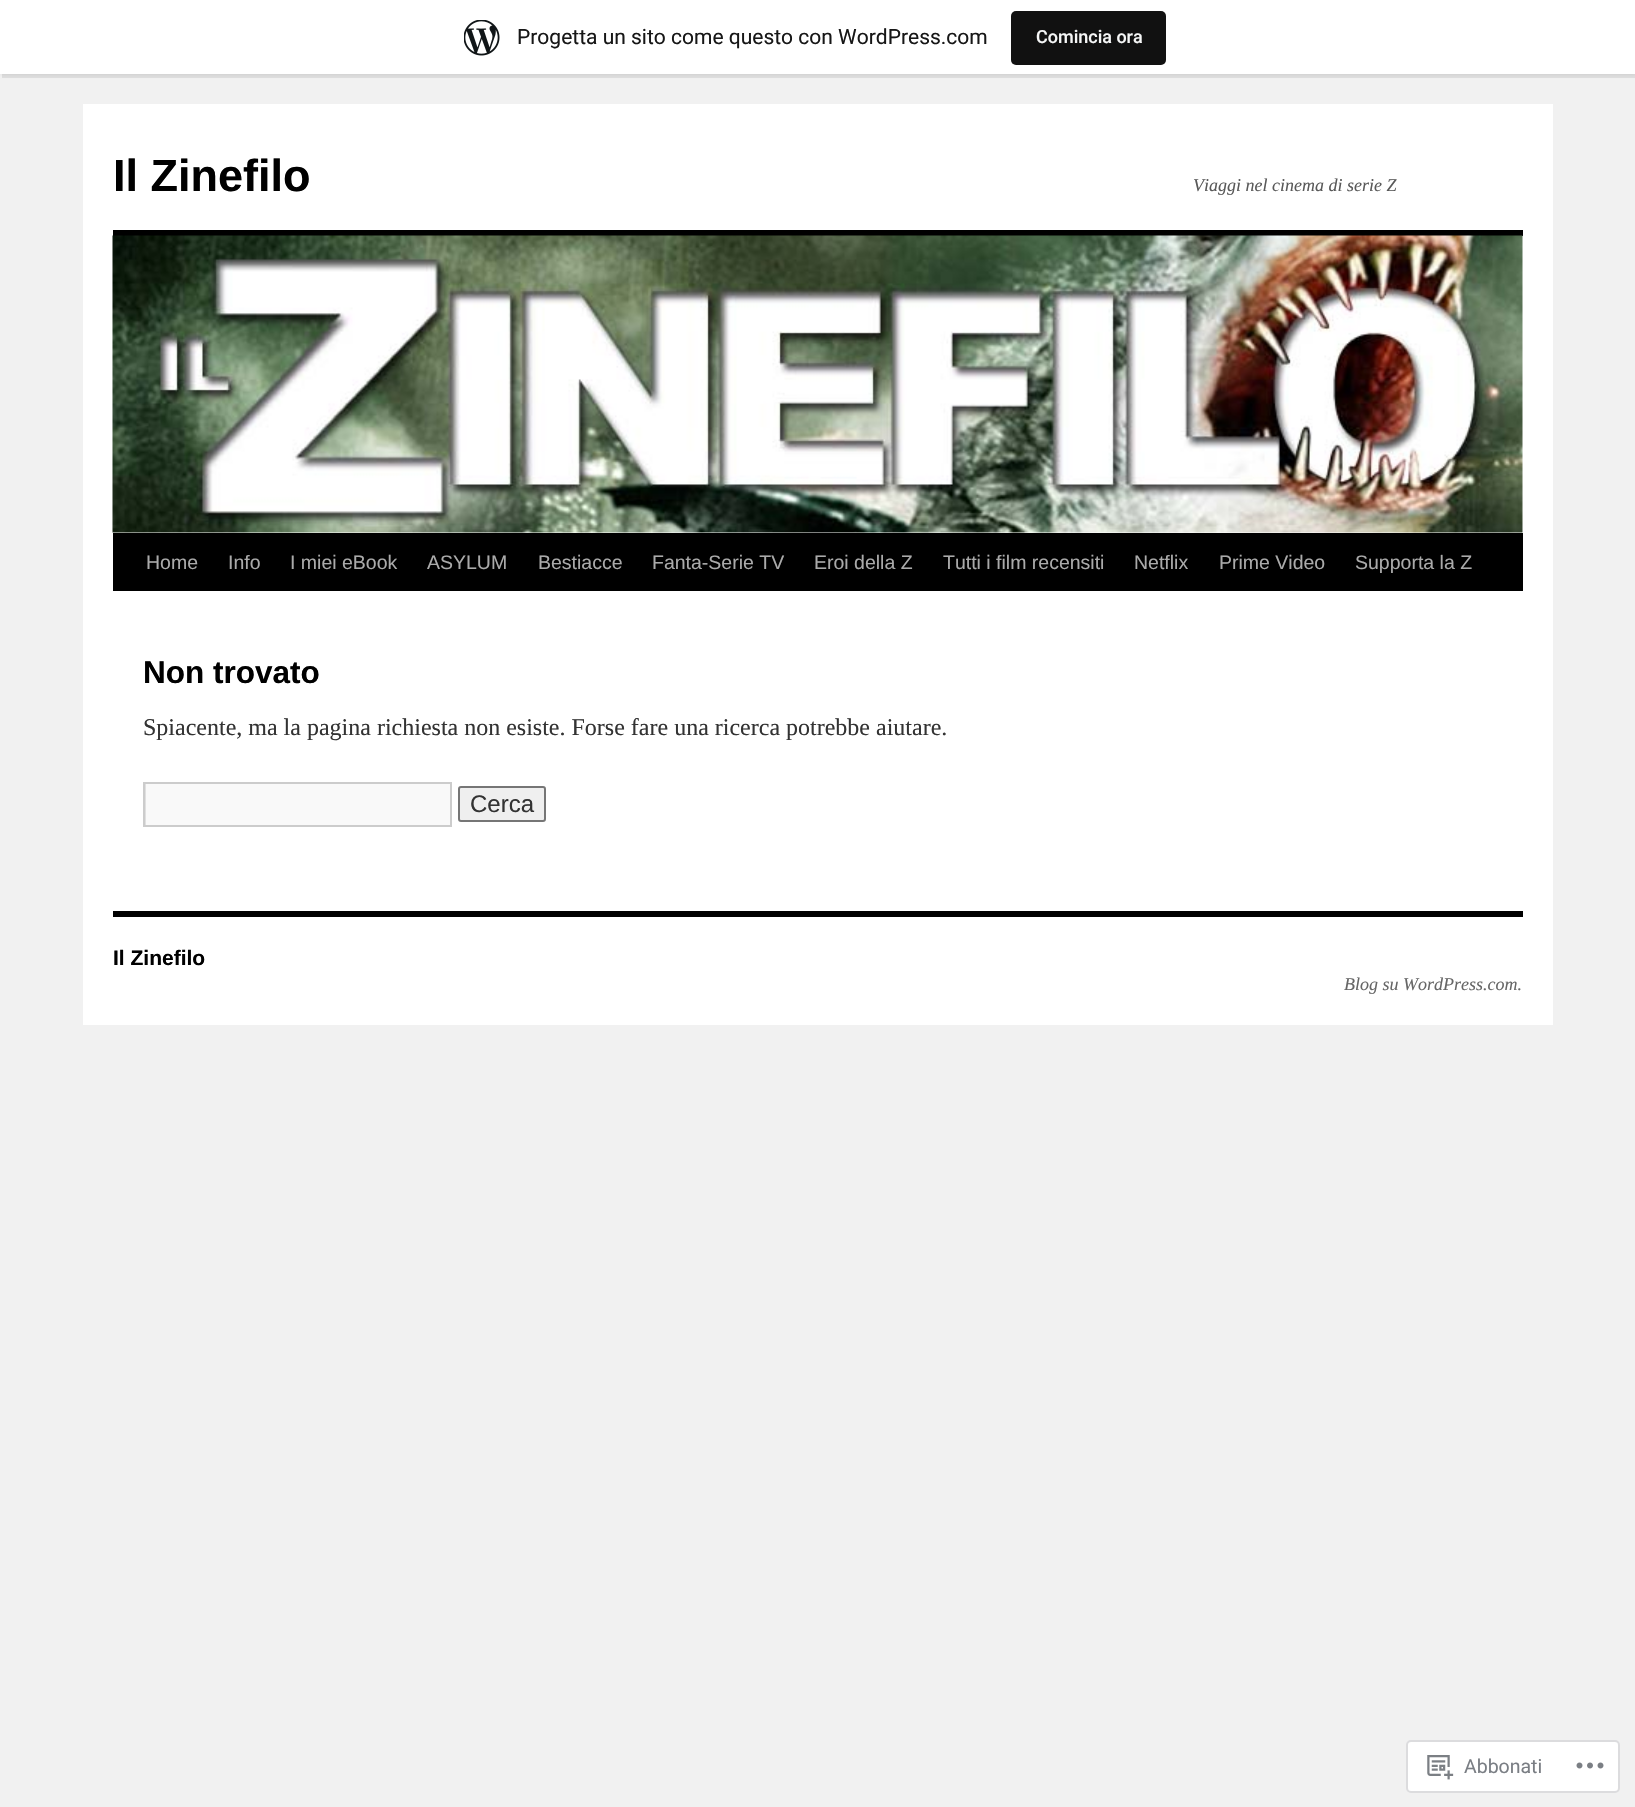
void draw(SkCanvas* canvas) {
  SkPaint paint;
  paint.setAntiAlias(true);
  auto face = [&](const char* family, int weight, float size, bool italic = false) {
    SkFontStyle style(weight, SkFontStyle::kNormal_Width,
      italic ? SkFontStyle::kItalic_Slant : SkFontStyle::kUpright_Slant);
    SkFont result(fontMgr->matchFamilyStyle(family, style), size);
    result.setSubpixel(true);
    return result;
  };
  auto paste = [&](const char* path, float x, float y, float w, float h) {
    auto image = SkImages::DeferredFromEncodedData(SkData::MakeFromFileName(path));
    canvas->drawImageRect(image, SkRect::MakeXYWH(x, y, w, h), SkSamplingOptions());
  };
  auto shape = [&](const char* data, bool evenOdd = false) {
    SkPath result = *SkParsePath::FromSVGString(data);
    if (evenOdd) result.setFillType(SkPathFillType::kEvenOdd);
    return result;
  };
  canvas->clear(0xfff1f1f1);
  paint.setColor(0x0d000000);
  paint.setMaskFilter(SkMaskFilter::MakeBlur(kNormal_SkBlurStyle, 1.5f));
  canvas->drawRect(SkRect::MakeXYWH(0, 2, 1635, 73), paint);
  paint.setMaskFilter(nullptr);
  paint.setColor(0x14000000);
  canvas->drawPath(shape("M2 74V78H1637V5H1635V74Z"), paint);
  paint.setColor(0xffffffff);
  canvas->drawRect(SkRect::MakeXYWH(0, 0, 1635, 74), paint);
  paste("img/1.png", 464, 20, 36, 36);
  paint.setColor(0xff111111);
  canvas->drawRoundRect(SkRect::MakeXYWH(1011, 11, 155, 54), 5, 5, paint);
  {
    const struct { float x, y, w, h; SkColor color; } items[] = {
      {83, 104, 1470, 921, 0xffffffff},
      {113, 230, 1410, 6, 0xff000000},
      {113, 533, 1410, 58, 0xff000000},
    };
    for (auto [x, y, w, h, color] : items) {
      paint.setColor(color);
      canvas->drawRect(SkRect::MakeXYWH(x, y, w, h), paint);
    }
  }
  paste("img/2.png", 112, 235, 1411, 298);
  paint.setColor(0xfff9f9f9);
  canvas->drawRect(SkRect::MakeXYWH(146, 784, 304, 41), paint);
  canvas->save();
  canvas->clipRect(SkRect::MakeXYWH(144, 783, 306, 42));
  paint.setColor(0xffe0e0e0);
  canvas->drawPath(shape("M-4 634H598V974H-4ZM146 784H452V826H146Z", true), paint);
  canvas->restore();
  paint.setStroke(true);
  paint.setStrokeWidth(2);
  paint.setColor(0xffcccccc);
  canvas->drawRect(SkRect::MakeXYWH(144, 783, 307, 43), paint);
  paint.setStroke(false);
  paint.setColor(0xffefefef);
  canvas->drawRoundRect(SkRect::MakeXYWH(459, 787, 86, 34), 2, 2, paint);
  paint.setStroke(true);
  paint.setColor(0xff767676);
  canvas->drawRoundRect(SkRect::MakeXYWH(459, 787, 86, 34), 2, 2, paint);
  paint.setStroke(false);
  paint.setColor(0xff000000);
  canvas->drawRect(SkRect::MakeXYWH(113, 911, 1410, 6), paint);
  paint.setColor(0xffffffff);
  canvas->drawRoundRect(SkRect::MakeXYWH(1407, 1741, 212, 51), 4, 4, paint);
  paint.setStroke(true);
  paint.setColor(0xffdcdcde);
  canvas->drawRoundRect(SkRect::MakeXYWH(1407, 1741, 212, 51), 4, 4, paint);
  paste("img/3.png", 1427, 1755, 27, 25);
  paste("img/4.png", 1576, 1762, 28, 7);
  auto f0 = face("Roboto", 400, 21);
  paint.setStroke(false);
  paint.setColor(0xff171717);
  canvas->drawString("Progetta un sito come questo con WordPress.com", 517, 44, f0, paint);
  auto f1 = face("Roboto", 500, 18);
  paint.setColor(0xfff6f7f7);
  canvas->drawString("Comincia ora", 1036, 43, f1, paint);
  auto f2 = face("Liberation Sans", 700, 45);
  paint.setColor(0xff000000);
  canvas->drawString("Il Zinefilo", 113, 191, f2, paint);
  auto f3 = face("Liberation Serif", 400, 18, true);
  paint.setColor(0xff595959);
  canvas->drawString("Viaggi nel cinema di serie Z", 1193, 191, f3, paint);
  auto f4 = face("Liberation Sans", 400, 19.5f);
  paint.setColor(0xffaaaaaa);
  {
    const struct { const char* s; float x, y; } items[] = {
      {"Home", 146, 569},
      {"Info", 228, 569},
      {"I miei eBook", 290, 569},
      {"ASYLUM", 427, 569},
      {"Bestiacce", 538, 569},
      {"Fanta-Serie TV", 652, 569},
      {"Eroi della Z", 814, 569},
      {"Tutti i film recensiti", 943, 569},
      {"Netflix", 1134, 569},
      {"Prime Video", 1219, 569},
      {"Supporta la Z", 1355, 569},
    };
    for (auto [s, x, y] : items) {
      canvas->drawString(s, x, y, f4, paint);
    }
  }
  auto f5 = face("Liberation Sans", 700, 31.5f);
  paint.setColor(0xff000000);
  canvas->drawString("Non trovato", 143, 683, f5, paint);
  auto f6 = face("Liberation Serif", 400, 24);
  paint.setColor(0xff333333);
  canvas->drawString("Spiacente, ma la pagina richiesta non esiste. Forse fare una ricerca potrebbe aiutare.", 143, 735, f6, paint);
  auto f7 = face("Liberation Sans", 400, 24);
  canvas->drawString("Cerca", 470, 812, f7, paint);
  auto f8 = face("Liberation Sans", 700, 21);
  paint.setColor(0xff000000);
  canvas->drawString("Il Zinefilo", 113, 965, f8, paint);
  paint.setColor(0xff666666);
  canvas->drawString("Blog su WordPress.com.", 1344, 990, f3, paint);
  auto f9 = face("Roboto", 400, 19.5f);
  paint.setColor(0xff7a7e84);
  canvas->drawString("Abbonati", 1464, 1773, f9, paint);
}
